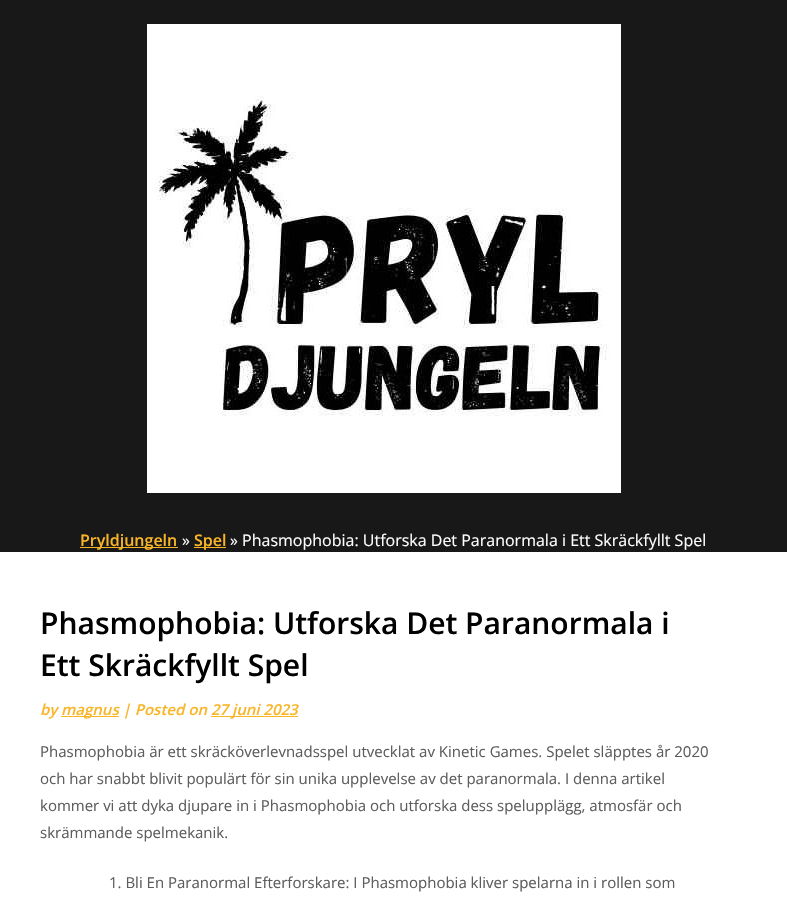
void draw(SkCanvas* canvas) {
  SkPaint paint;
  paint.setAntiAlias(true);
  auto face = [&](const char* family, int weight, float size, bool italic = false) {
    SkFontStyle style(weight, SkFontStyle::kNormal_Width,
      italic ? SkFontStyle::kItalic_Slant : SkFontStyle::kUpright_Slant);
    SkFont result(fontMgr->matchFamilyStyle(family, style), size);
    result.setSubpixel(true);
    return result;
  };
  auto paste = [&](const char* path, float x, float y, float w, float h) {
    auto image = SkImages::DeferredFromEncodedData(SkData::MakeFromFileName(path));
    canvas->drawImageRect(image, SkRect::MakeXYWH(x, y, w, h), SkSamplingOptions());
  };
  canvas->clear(0xffffffff);
  paint.setColor(0xff181818);
  canvas->drawRect(SkRect::MakeXYWH(0, 0, 787, 552), paint);
  paste("img/1.png", 147, 24, 474, 469);
  {
    const struct { float x, y, w, h; SkColor color; } items[] = {
      {80, 547, 98, 1, 0xfffab526},
      {194, 547, 32, 1, 0xfffab526},
      {61, 716, 58, 1, 0xfffab526},
      {211, 716, 87, 1, 0xfffab526},
    };
    for (auto [x, y, w, h, color] : items) {
      paint.setColor(color);
      canvas->drawRect(SkRect::MakeXYWH(x, y, w, h), paint);
    }
  }
  auto f0 = face("Open Sans", 600, 16);
  canvas->drawString("Pryldjungeln", 80, 546, f0, paint);
  auto f1 = face("Open Sans", 400, 16);
  paint.setColor(0xffffffff);
  canvas->drawString("»", 182, 546, f1, paint);
  paint.setColor(0xfffab526);
  canvas->drawString("Spel", 194, 546, f0, paint);
  paint.setColor(0xffffffff);
  canvas->drawString("» Phasmophobia: Utforska Det Paranormala i Ett Skräckfyllt Spel", 230, 546, f1, paint);
  auto f2 = face("Open Sans", 600, 30);
  paint.setColor(0xff000000);
  canvas->drawString("Phasmophobia: Utforska Det Paranormala i", 40, 634, f2, paint);
  canvas->drawString("Ett Skräckfyllt Spel", 40, 676, f2, paint);
  auto f3 = face("Open Sans", 600, 15, true);
  paint.setColor(0xfffab526);
  {
    const struct { const char* s; float x, y; } items[] = {
      {"by", 40, 715},
      {"magnus | Posted on", 61, 715},
      {"27 juni 2023", 211, 715},
    };
    for (auto [s, x, y] : items) {
      canvas->drawString(s, x, y, f3, paint);
    }
  }
  auto f4 = face("Open Sans", 400, 15);
  paint.setColor(0xff5d5d5d);
  {
    const struct { const char* s; float x, y; } items[] = {
      {"Phasmophobia är ett skräcköverlevnadsspel utvecklat av Kinetic Games. Spelet släpptes år 2020", 40, 757},
      {"och har snabbt blivit populärt för sin unika upplevelse av det paranormala. I denna artikel", 40, 784},
      {"kommer vi att dyka djupare in i Phasmophobia och utforska dess spelupplägg, atmosfär och", 40, 811},
      {"skrämmande spelmekanik.", 40, 838},
      {"1. Bli En Paranormal Efterforskare: I Phasmophobia kliver spelarna in i rollen som", 109, 888},
    };
    for (auto [s, x, y] : items) {
      canvas->drawString(s, x, y, f4, paint);
    }
  }
}
